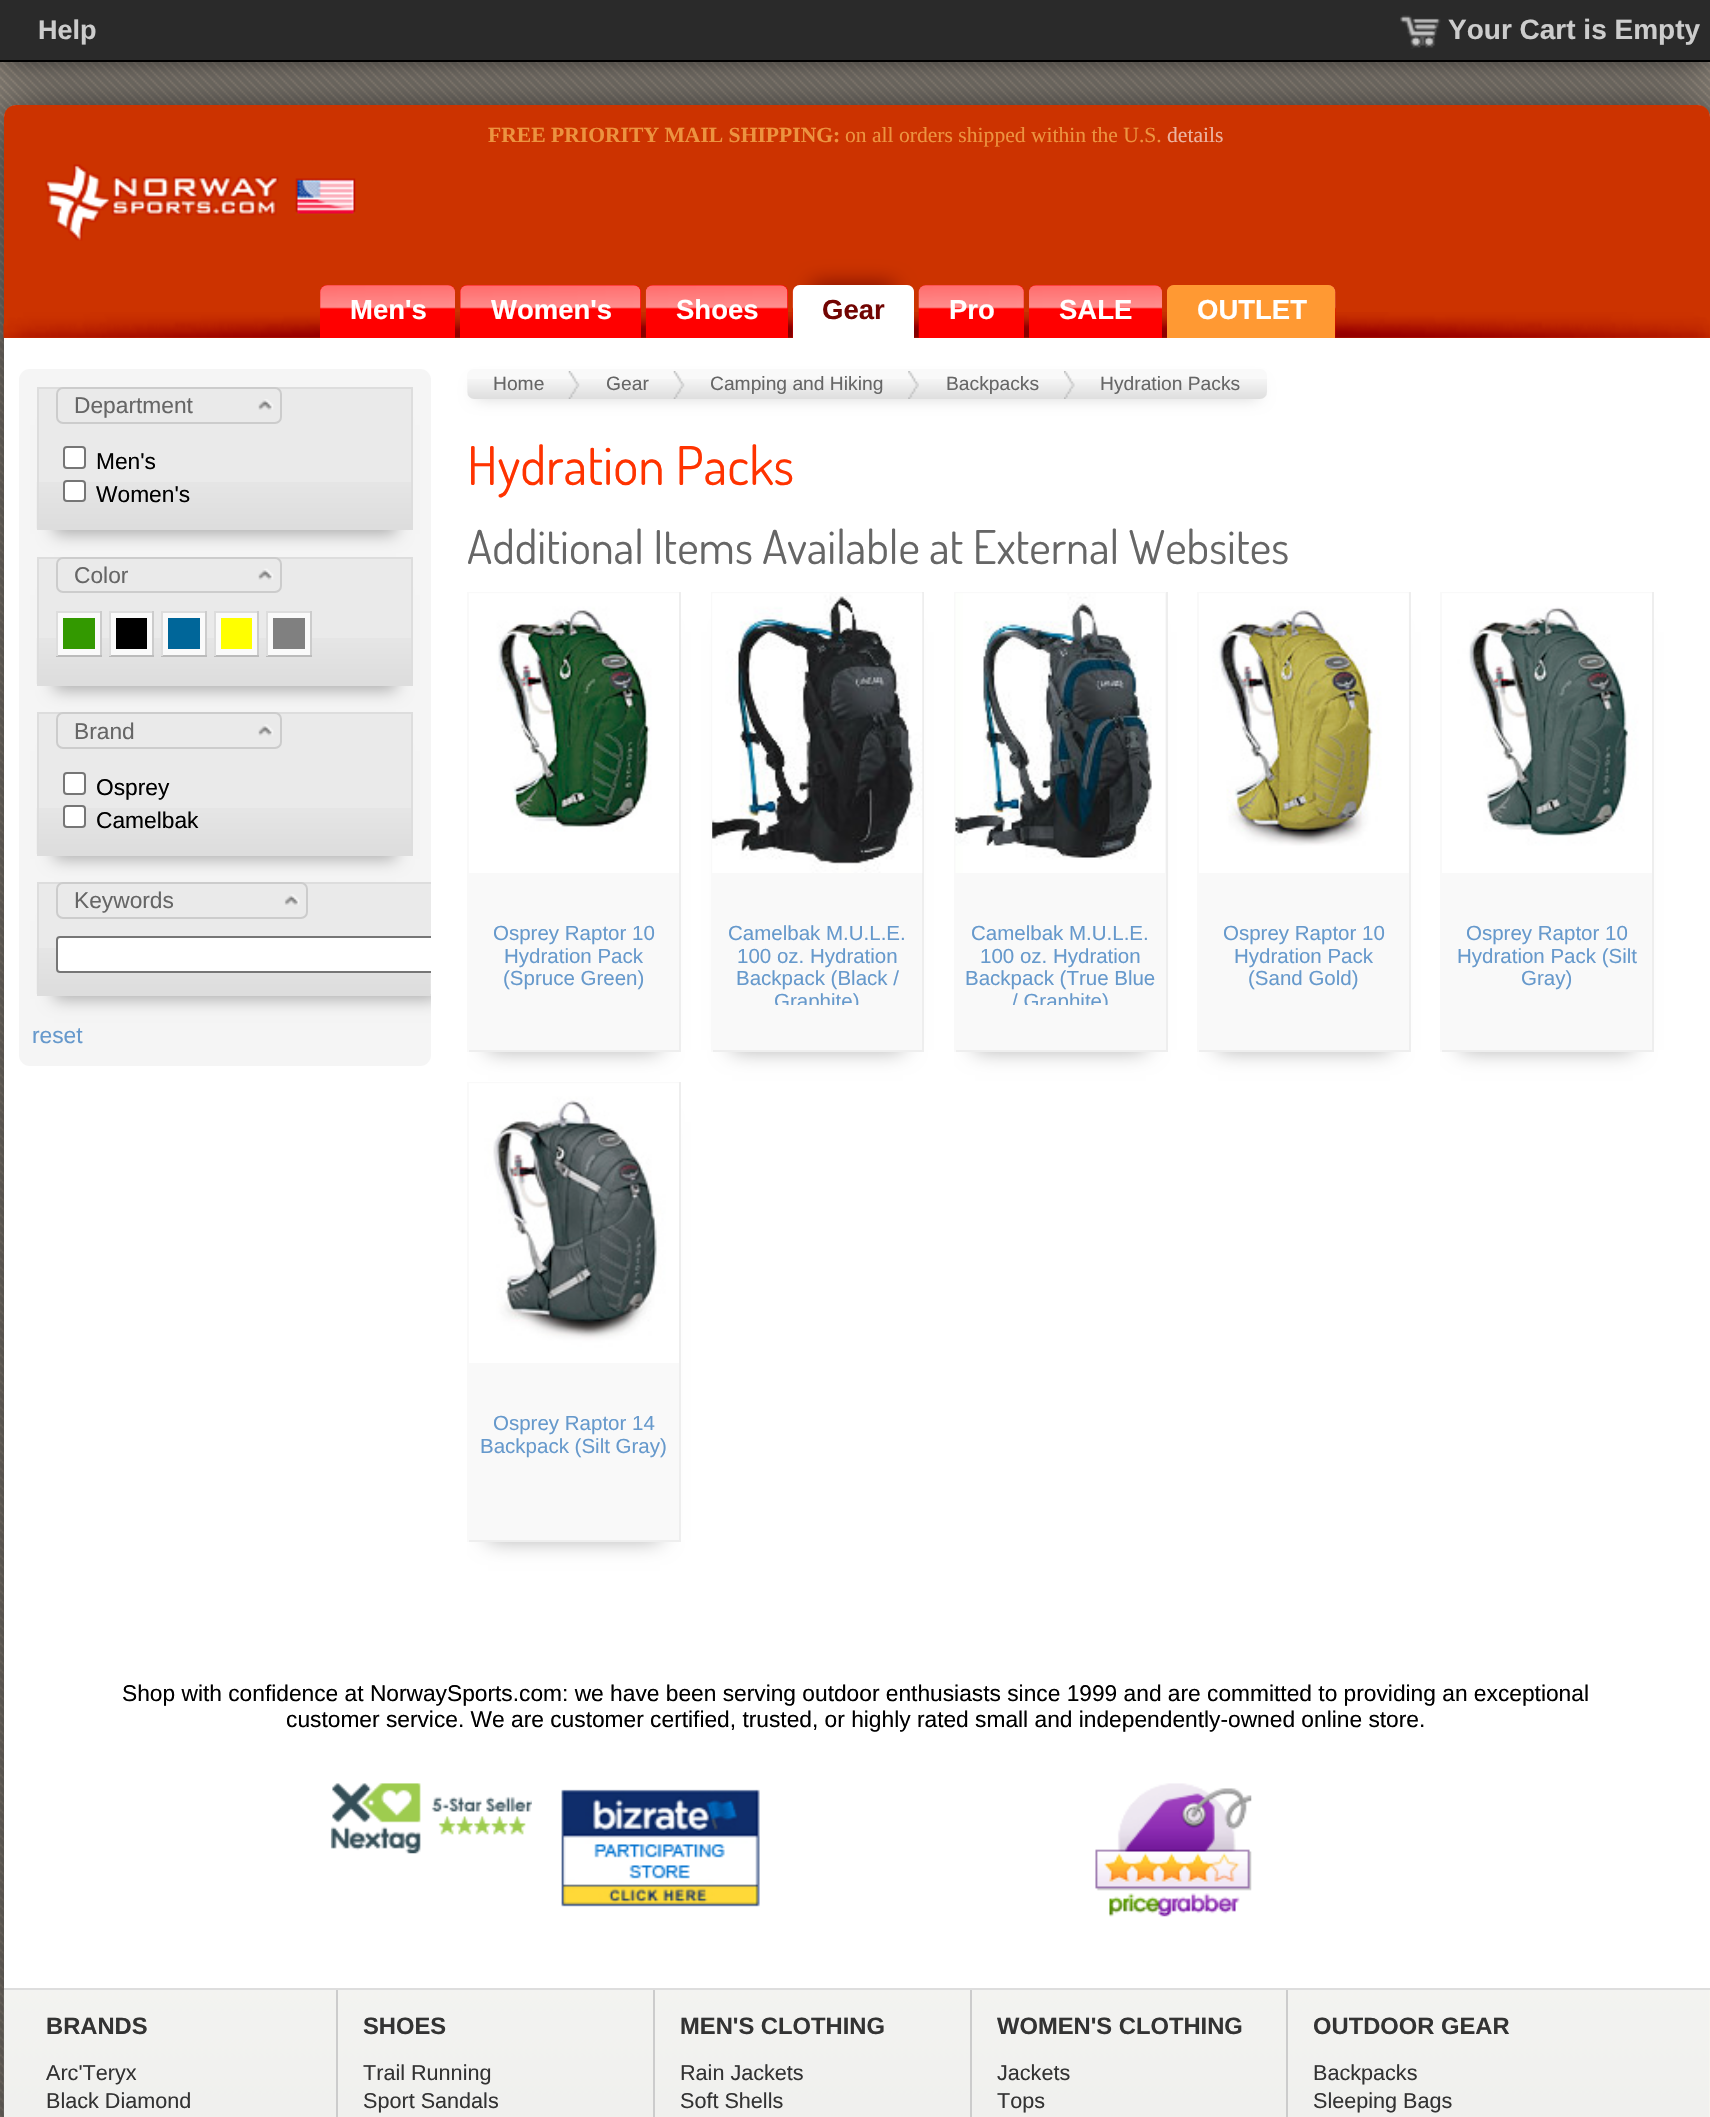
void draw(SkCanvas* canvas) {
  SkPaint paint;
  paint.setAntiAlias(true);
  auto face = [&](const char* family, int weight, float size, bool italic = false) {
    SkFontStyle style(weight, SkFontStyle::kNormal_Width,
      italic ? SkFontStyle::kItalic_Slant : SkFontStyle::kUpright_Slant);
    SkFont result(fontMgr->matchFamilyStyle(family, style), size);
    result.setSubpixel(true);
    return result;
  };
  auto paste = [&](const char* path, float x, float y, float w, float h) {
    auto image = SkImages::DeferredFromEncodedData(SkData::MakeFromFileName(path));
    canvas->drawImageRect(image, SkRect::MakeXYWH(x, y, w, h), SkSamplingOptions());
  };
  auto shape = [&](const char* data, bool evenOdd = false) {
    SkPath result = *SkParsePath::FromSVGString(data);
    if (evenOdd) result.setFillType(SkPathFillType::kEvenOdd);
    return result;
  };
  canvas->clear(0xff878076);
  paste("img/1.png", 0, 62, 1710, 2055);
  paint.setColor(0xff222222);
  paint.setMaskFilter(SkMaskFilter::MakeBlur(kNormal_SkBlurStyle, 30.5f));
  canvas->drawRoundRect(SkRect::MakeXYWH(4, 105, 1706, 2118), 14, 14, paint);
  paint.setMaskFilter(nullptr);
  paint.setColor(0xffffffff);
  canvas->drawRoundRect(SkRect::MakeXYWH(4, 105, 1706, 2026), 14, 14, paint);
  paint.setColor(0xffcc3300);
  canvas->drawPath(shape("M16 105H1698C1704.5 105 1710 110.5 1710 117V154H4V117C4 110.5 9.5 105 16 105Z"), paint);
  paint.setColor(0xff222222);
  paint.setMaskFilter(SkMaskFilter::MakeBlur(kNormal_SkBlurStyle, 17.5f));
  canvas->drawRect(SkRect::MakeXYWH(0, -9, 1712, 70), paint);
  paint.setMaskFilter(nullptr);
  paint.setColor(0xff2a2a2a);
  canvas->drawRect(SkRect::MakeXYWH(0, 0, 1710, 60), paint);
  paint.setColor(0xff000000);
  canvas->drawRect(SkRect::MakeXYWH(0, 60, 1710, 2), paint);
  paste("img/2.png", 1400, 15, 41, 34);
  paint.setColor(0xffcc3300);
  canvas->drawRect(SkRect::MakeXYWH(4, 154, 1706, 184), paint);
  paste("img/3.png", 45, 164, 311, 77);
  paste("img/4.png", 3, 312, 1707, 26);
  paint.setColor(0xffff0000);
  canvas->drawPath(shape("M327 285H448C452 285 455 288 455 292V338H320V292C320 288 323 285 327 285Z"), paint);
  paste("img/5.png", 320, 285, 136, 24);
  canvas->drawPath(shape("M467 285H634C638 285 641 288 641 292V338H460V292C460 288 463 285 467 285Z"), paint);
  paste("img/6.png", 460, 285, 181, 24);
  canvas->drawPath(shape("M653 285H781C785 285 788 288 788 292V338H646V292C646 288 649 285 653 285Z"), paint);
  paste("img/7.png", 645, 285, 143, 52);
  paste("img/8.png", 792, 285, 122, 53);
  paint.setColor(0xff660000);
  paint.setMaskFilter(SkMaskFilter::MakeBlur(kNormal_SkBlurStyle, 10.5f));
  canvas->drawRect(SkRect::MakeXYWH(812, 285, 82, 14), paint);
  paint.setMaskFilter(nullptr);
  paint.setColor(0xffffffff);
  canvas->drawPath(shape("M800 285H907C911 285 914 288 914 292V338H793V292C793 288 796 285 800 285Z"), paint);
  paint.setColor(0xffff0000);
  canvas->drawPath(shape("M926 285H1017C1021 285 1024 288 1024 292V338H919V292C919 288 922 285 926 285Z"), paint);
  paste("img/9.png", 918, 285, 106, 53);
  canvas->drawPath(shape("M1036 285H1155C1159 285 1162 288 1162 292V338H1029V292C1029 288 1032 285 1036 285Z"), paint);
  paste("img/10.png", 1029, 285, 133, 24);
  paste("img/11.png", 1167, 285, 169, 53);
  paint.setColor(0xffff9933);
  canvas->drawPath(shape("M1174 285H1328C1332 285 1335 288 1335 292V338H1167V292C1167 288 1170 285 1174 285Z"), paint);
  paint.setColor(0xfff5f5f5);
  canvas->drawRoundRect(SkRect::MakeXYWH(19, 369, 412, 697), 11, 11, paint);
  paint.setColor(0xffaaaaaa);
  paint.setMaskFilter(SkMaskFilter::MakeBlur(kNormal_SkBlurStyle, 8));
  canvas->drawRect(SkRect::MakeXYWH(54, 425, 342, 109), paint);
  paint.setMaskFilter(nullptr);
  paint.setColor(0xffeaeaea);
  canvas->drawRect(SkRect::MakeXYWH(39, 389, 372, 93), paint);
  paste("img/12.png", 36, 482, 375, 47);
  paint.setStroke(true);
  paint.setStrokeWidth(2);
  paint.setColor(0xffdddddd);
  canvas->drawRect(SkRect::MakeXYWH(38, 388, 374, 141), paint);
  paste("img/13.png", 258, 399, 16, 11);
  paint.setColor(0xffcccccc);
  canvas->drawRoundRect(SkRect::MakeXYWH(57, 388, 224, 35), 6, 6, paint);
  paint.setStroke(false);
  paint.setColor(0xffffffff);
  canvas->drawRoundRect(SkRect::MakeXYWH(64, 447, 21, 21), 3, 3, paint);
  paint.setStroke(true);
  paint.setColor(0xff767676);
  canvas->drawRoundRect(SkRect::MakeXYWH(64, 447, 21, 21), 3, 3, paint);
  paint.setStroke(false);
  paint.setColor(0xffffffff);
  canvas->drawRoundRect(SkRect::MakeXYWH(64, 481, 21, 20), 3, 3, paint);
  paint.setStroke(true);
  paint.setColor(0xff767676);
  canvas->drawRoundRect(SkRect::MakeXYWH(64, 481, 21, 20), 3, 3, paint);
  paint.setStroke(false);
  paint.setColor(0xffaaaaaa);
  paint.setMaskFilter(SkMaskFilter::MakeBlur(kNormal_SkBlurStyle, 8));
  canvas->drawRect(SkRect::MakeXYWH(54, 595, 342, 95), paint);
  paint.setMaskFilter(nullptr);
  paint.setColor(0xffeaeaea);
  canvas->drawRect(SkRect::MakeXYWH(39, 559, 372, 79), paint);
  paste("img/14.png", 36, 638, 375, 46);
  paint.setStroke(true);
  paint.setColor(0xffdddddd);
  canvas->drawRect(SkRect::MakeXYWH(38, 558, 374, 127), paint);
  paste("img/15.png", 258, 568, 16, 12);
  paint.setColor(0xffcccccc);
  canvas->drawRoundRect(SkRect::MakeXYWH(57, 558, 224, 34), 6, 6, paint);
  paint.setStroke(false);
  {
    const struct { float x, y, w, h; SkColor color; } items[] = {
      {58, 613, 42, 42, 0xfffafafa},
      {56, 611, 46, 2, 0xffdddddd},
      {100, 611, 2, 45, 0xffcccccc},
      {56, 655, 46, 2, 0xffbbbbbb},
      {56, 611, 2, 45, 0xffdddddd},
      {63, 618, 32, 31, 0xff339900},
      {111, 613, 41, 42, 0xfffafafa},
      {109, 611, 45, 2, 0xffdddddd},
      {152, 611, 2, 45, 0xffcccccc},
      {109, 655, 45, 2, 0xffbbbbbb},
      {109, 611, 2, 45, 0xffdddddd},
      {116, 618, 31, 31, 0xff000000},
      {163, 613, 42, 42, 0xfffafafa},
      {161, 611, 46, 2, 0xffdddddd},
      {205, 611, 2, 45, 0xffcccccc},
      {161, 655, 46, 2, 0xffbbbbbb},
      {161, 611, 2, 45, 0xffdddddd},
      {168, 618, 32, 31, 0xff006699},
      {216, 613, 41, 42, 0xfffafafa},
      {214, 611, 45, 2, 0xffdddddd},
      {257, 611, 2, 45, 0xffcccccc},
      {214, 655, 45, 2, 0xffbbbbbb},
      {214, 611, 2, 45, 0xffdddddd},
      {221, 618, 31, 31, 0xffffff00},
      {268, 613, 42, 42, 0xfffafafa},
      {266, 611, 46, 2, 0xffdddddd},
      {310, 611, 2, 45, 0xffcccccc},
      {266, 655, 46, 2, 0xffbbbbbb},
      {266, 611, 2, 45, 0xffdddddd},
      {273, 618, 32, 31, 0xff808080},
    };
    for (auto [x, y, w, h, color] : items) {
      paint.setColor(color);
      canvas->drawRect(SkRect::MakeXYWH(x, y, w, h), paint);
    }
  }
  paint.setColor(0xffaaaaaa);
  paint.setMaskFilter(SkMaskFilter::MakeBlur(kNormal_SkBlurStyle, 8));
  canvas->drawRect(SkRect::MakeXYWH(54, 751, 342, 108), paint);
  paint.setMaskFilter(nullptr);
  paint.setColor(0xffeaeaea);
  canvas->drawRect(SkRect::MakeXYWH(39, 714, 372, 94), paint);
  paste("img/16.png", 36, 808, 375, 46);
  paint.setStroke(true);
  paint.setColor(0xffdddddd);
  canvas->drawRect(SkRect::MakeXYWH(38, 713, 374, 142), paint);
  paste("img/17.png", 258, 724, 16, 12);
  paint.setColor(0xffcccccc);
  canvas->drawRoundRect(SkRect::MakeXYWH(57, 713, 224, 35), 6, 6, paint);
  paint.setStroke(false);
  paint.setColor(0xffffffff);
  canvas->drawRoundRect(SkRect::MakeXYWH(64, 773, 21, 21), 3, 3, paint);
  paint.setStroke(true);
  paint.setColor(0xff767676);
  canvas->drawRoundRect(SkRect::MakeXYWH(64, 773, 21, 21), 3, 3, paint);
  paint.setStroke(false);
  paint.setColor(0xffffffff);
  canvas->drawRoundRect(SkRect::MakeXYWH(64, 806, 21, 21), 3, 3, paint);
  paint.setStroke(true);
  paint.setColor(0xff767676);
  canvas->drawRoundRect(SkRect::MakeXYWH(64, 806, 21, 21), 3, 3, paint);
  canvas->save();
  canvas->clipRect(SkRect::MakeXYWH(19, 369, 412, 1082));
  paint.setStroke(false);
  paint.setColor(0xffaaaaaa);
  paint.setMaskFilter(SkMaskFilter::MakeBlur(kNormal_SkBlurStyle, 8));
  canvas->drawRect(SkRect::MakeXYWH(54, 921, 384, 78), paint);
  paint.setMaskFilter(nullptr);
  canvas->restore();
  paint.setColor(0xffeaeaea);
  canvas->drawRect(SkRect::MakeXYWH(39, 884, 392, 110), paint);
  paste("img/18.png", 36, 948, 395, 46);
  canvas->save();
  canvas->clipRect(SkRect::MakeXYWH(19, 369, 412, 1082));
  paint.setStroke(true);
  paint.setColor(0xffdddddd);
  canvas->drawRect(SkRect::MakeXYWH(38, 883, 416, 112), paint);
  canvas->restore();
  paste("img/19.png", 284, 894, 16, 11);
  paint.setColor(0xffcccccc);
  canvas->drawRoundRect(SkRect::MakeXYWH(57, 883, 250, 35), 6, 6, paint);
  paint.setStroke(false);
  paint.setColor(0xffffffff);
  canvas->drawPath(shape("M60 936H431V973H60C58 973 56 971 56 969V940C56 938 58 936 60 936Z"), paint);
  canvas->save();
  canvas->clipRect(SkRect::MakeXYWH(19, 369, 412, 1082));
  paint.setStroke(true);
  paint.setColor(0xff767676);
  canvas->drawRoundRect(SkRect::MakeXYWH(57, 937, 378, 35), 3, 3, paint);
  canvas->restore();
  paint.setStroke(false);
  paint.setColor(0xffcccccc);
  paint.setMaskFilter(SkMaskFilter::MakeBlur(kNormal_SkBlurStyle, 8));
  canvas->drawRect(SkRect::MakeXYWH(476, 385, 782, 12), paint);
  paint.setMaskFilter(nullptr);
  paint.setColor(0xfff9f9f9);
  canvas->drawRoundRect(SkRect::MakeXYWH(467, 369, 800, 30), 7, 7, paint);
  paste("img/20.png", 467, 379, 800, 20);
  paste("img/21.png", 568, 371, 12, 28);
  paste("img/21.png", 673, 371, 12, 28);
  paste("img/22.png", 908, 371, 11, 28);
  paste("img/23.png", 1064, 371, 11, 28);
  canvas->save();
  canvas->clipRect(SkRect::MakeXYWH(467, 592, 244, 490));
  paint.setColor(0xffaaaaaa);
  paint.setMaskFilter(SkMaskFilter::MakeBlur(kNormal_SkBlurStyle, 10.5f));
  canvas->drawRect(SkRect::MakeXYWH(488, 632, 172, 418), paint);
  paint.setMaskFilter(nullptr);
  canvas->restore();
  {
    const struct { float x, y, w, h; SkColor color; } items[] = {
      {469, 592, 210, 458, 0xfff9f9f9},
      {679, 592, 2, 460, 0xffeeeeee},
      {467, 1050, 214, 2, 0xffeeeeee},
      {467, 592, 2, 460, 0xfff9f9f9},
    };
    for (auto [x, y, w, h, color] : items) {
      paint.setColor(color);
      canvas->drawRect(SkRect::MakeXYWH(x, y, w, h), paint);
    }
  }
  paste("img/24.png", 469, 593, 210, 280);
  canvas->save();
  canvas->clipPath(shape("M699 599H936V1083H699ZM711 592H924V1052H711Z", true), true);
  paint.setColor(0xffaaaaaa);
  paint.setMaskFilter(SkMaskFilter::MakeBlur(kNormal_SkBlurStyle, 10.5f));
  canvas->drawRect(SkRect::MakeXYWH(732, 632, 171, 418), paint);
  paint.setMaskFilter(nullptr);
  canvas->restore();
  {
    const struct { float x, y, w, h; SkColor color; } items[] = {
      {713, 592, 209, 458, 0xfff9f9f9},
      {922, 592, 2, 460, 0xffeeeeee},
      {711, 1050, 213, 2, 0xffeeeeee},
      {711, 592, 2, 460, 0xfff9f9f9},
    };
    for (auto [x, y, w, h, color] : items) {
      paint.setColor(color);
      canvas->drawRect(SkRect::MakeXYWH(x, y, w, h), paint);
    }
  }
  paste("img/25.png", 712, 593, 211, 280);
  canvas->save();
  canvas->clipRect(SkRect::MakeXYWH(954, 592, 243, 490));
  paint.setColor(0xffaaaaaa);
  paint.setMaskFilter(SkMaskFilter::MakeBlur(kNormal_SkBlurStyle, 10.5f));
  canvas->drawRect(SkRect::MakeXYWH(975, 632, 171, 418), paint);
  paint.setMaskFilter(nullptr);
  canvas->restore();
  {
    const struct { float x, y, w, h; SkColor color; } items[] = {
      {956, 592, 210, 458, 0xfff9f9f9},
      {1166, 592, 2, 460, 0xffeeeeee},
      {954, 1050, 213, 2, 0xffeeeeee},
      {954, 592, 2, 460, 0xfff9f9f9},
    };
    for (auto [x, y, w, h, color] : items) {
      paint.setColor(color);
      canvas->drawRect(SkRect::MakeXYWH(x, y, w, h), paint);
    }
  }
  paste("img/26.png", 955, 593, 210, 280);
  canvas->save();
  canvas->clipRect(SkRect::MakeXYWH(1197, 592, 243, 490));
  paint.setColor(0xffaaaaaa);
  paint.setMaskFilter(SkMaskFilter::MakeBlur(kNormal_SkBlurStyle, 10.5f));
  canvas->drawRect(SkRect::MakeXYWH(1218, 632, 172, 418), paint);
  paint.setMaskFilter(nullptr);
  canvas->restore();
  {
    const struct { float x, y, w, h; SkColor color; } items[] = {
      {1199, 592, 210, 458, 0xfff9f9f9},
      {1409, 592, 2, 460, 0xffeeeeee},
      {1197, 1050, 214, 2, 0xffeeeeee},
      {1197, 592, 2, 460, 0xfff9f9f9},
    };
    for (auto [x, y, w, h, color] : items) {
      paint.setColor(color);
      canvas->drawRect(SkRect::MakeXYWH(x, y, w, h), paint);
    }
  }
  paste("img/27.png", 1199, 593, 210, 280);
  canvas->save();
  canvas->clipRect(SkRect::MakeXYWH(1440, 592, 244, 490));
  paint.setColor(0xffaaaaaa);
  paint.setMaskFilter(SkMaskFilter::MakeBlur(kNormal_SkBlurStyle, 10.5f));
  canvas->drawRect(SkRect::MakeXYWH(1461, 632, 172, 418), paint);
  paint.setMaskFilter(nullptr);
  canvas->restore();
  {
    const struct { float x, y, w, h; SkColor color; } items[] = {
      {1442, 592, 210, 458, 0xfff9f9f9},
      {1652, 592, 2, 460, 0xffeeeeee},
      {1440, 1050, 214, 2, 0xffeeeeee},
      {1440, 592, 2, 460, 0xfff9f9f9},
    };
    for (auto [x, y, w, h, color] : items) {
      paint.setColor(color);
      canvas->drawRect(SkRect::MakeXYWH(x, y, w, h), paint);
    }
  }
  paste("img/28.png", 1442, 593, 210, 280);
  canvas->save();
  canvas->clipRect(SkRect::MakeXYWH(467, 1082, 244, 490));
  paint.setColor(0xffaaaaaa);
  paint.setMaskFilter(SkMaskFilter::MakeBlur(kNormal_SkBlurStyle, 10.5f));
  canvas->drawRect(SkRect::MakeXYWH(488, 1122, 172, 418), paint);
  paint.setMaskFilter(nullptr);
  canvas->restore();
  {
    const struct { float x, y, w, h; SkColor color; } items[] = {
      {469, 1082, 210, 458, 0xfff9f9f9},
      {679, 1082, 2, 460, 0xffeeeeee},
      {467, 1540, 214, 2, 0xffeeeeee},
      {467, 1082, 2, 460, 0xfff9f9f9},
    };
    for (auto [x, y, w, h, color] : items) {
      paint.setColor(color);
      canvas->drawRect(SkRect::MakeXYWH(x, y, w, h), paint);
    }
  }
  paste("img/29.png", 469, 1083, 210, 280);
  paste("img/30.png", 330, 1783, 202, 71);
  paste("img/31.png", 561, 1789, 199, 118);
  paste("img/32.png", 1095, 1783, 157, 134);
  paint.setColor(0xfff5f5f0);
  canvas->drawRect(SkRect::MakeXYWH(4, 1990, 1706, 127), paint);
  paste("img/33.png", 3, 1990, 1706, 127);
  {
    const struct { float x, y, w, h; SkColor color; } items[] = {
      {4, 1988, 1706, 2, 0xffdddddd},
      {336, 1990, 2, 127, 0xffcccccc},
      {653, 1990, 2, 127, 0xffcccccc},
      {970, 1990, 2, 127, 0xffcccccc},
      {1286, 1990, 2, 127, 0xffcccccc},
    };
    for (auto [x, y, w, h, color] : items) {
      paint.setColor(color);
      canvas->drawRect(SkRect::MakeXYWH(x, y, w, h), paint);
    }
  }
  auto f0 = face("Liberation Sans", 700, 27);
  canvas->drawString("Help", 38, 39, f0, paint);
  auto f1 = face("Liberation Sans", 700, 28);
  canvas->drawString("Your Cart is Empty", 1448, 39, f1, paint);
  auto f2 = face("Liberation Serif", 700, 21.6f);
  paint.setColor(0xffec9340);
  canvas->drawString("FREE PRIORITY MAIL SHIPPING:", 488, 142, f2, paint);
  auto f3 = face("Liberation Serif", 400, 21.6f);
  canvas->drawString("on all orders shipped within the U.S.", 845, 142, f3, paint);
  paint.setColor(0xffecb3a0);
  canvas->drawString("details", 1167, 142, f3, paint);
  auto f4 = face("Liberation Sans", 700, 27.5f);
  paint.setColor(0xffffffff);
  {
    const struct { const char* s; float x, y; } items[] = {
      {"Men's", 350, 319},
      {"Women's", 491, 319},
      {"Shoes", 676, 319},
    };
    for (auto [s, x, y] : items) {
      canvas->drawString(s, x, y, f4, paint);
    }
  }
  paint.setColor(0xff720503);
  canvas->drawString("Gear", 822, 319, f4, paint);
  paint.setColor(0xffffffff);
  {
    const struct { const char* s; float x, y; } items[] = {
      {"Pro", 949, 319},
      {"SALE", 1059, 319},
      {"OUTLET", 1197, 319},
    };
    for (auto [s, x, y] : items) {
      canvas->drawString(s, x, y, f4, paint);
    }
  }
  auto f5 = face("Liberation Sans", 400, 22.75f);
  paint.setColor(0xff666666);
  canvas->drawString("Department", 74, 413, f5, paint);
  paint.setColor(0xff000000);
  canvas->drawString("Men's", 96, 469, f5, paint);
  canvas->drawString("Women's", 96, 502, f5, paint);
  paint.setColor(0xff666666);
  canvas->drawString("Color", 74, 583, f5, paint);
  canvas->drawString("Brand", 74, 739, f5, paint);
  paint.setColor(0xff000000);
  canvas->drawString("Osprey", 96, 795, f5, paint);
  canvas->drawString("Camelbak", 96, 828, f5, paint);
  paint.setColor(0xff666666);
  canvas->drawString("Keywords", 74, 908, f5, paint);
  paint.setColor(0xff6699cc);
  canvas->drawString("reset", 32, 1043, f5, paint);
  auto f6 = face("Liberation Sans", 400, 19.25f);
  paint.setColor(0xff666666);
  {
    const struct { const char* s; float x, y; } items[] = {
      {"Home", 493, 390},
      {"Gear", 606, 390},
      {"Camping and Hiking", 710, 390},
      {"Backpacks", 946, 390},
      {"Hydration Packs", 1100, 390},
    };
    for (auto [s, x, y] : items) {
      canvas->drawString(s, x, y, f6, paint);
    }
  }
  auto f7 = face("Dosis", 400, 53.5f);
  paint.setColor(0xffff3300);
  canvas->drawString("Hydration Packs", 467, 485, f7, paint);
  auto f8 = face("Dosis", 400, 46.6f);
  paint.setColor(0xff666666);
  canvas->drawString("Additional Items Available at External Websites", 467, 564, f8, paint);
  auto f9 = face("Liberation Sans", 400, 20.5f);
  paint.setColor(0xff6699cc);
  {
    const struct { const char* s; float x, y; } items[] = {
      {"Osprey Raptor 10", 493, 940},
      {"Hydration Pack", 504, 963},
      {"(Spruce Green)", 503, 985},
      {"Camelbak M.U.L.E.", 728, 940},
      {"100 oz. Hydration", 737, 963},
      {"Backpack (Black /", 736, 985},
    };
    for (auto [s, x, y] : items) {
      canvas->drawString(s, x, y, f9, paint);
    }
  }
  canvas->save();
  canvas->clipRect(SkRect::MakeXYWH(719, 921, 196, 84));
  canvas->drawString("Graphite)", 774, 1008, f9, paint);
  canvas->restore();
  {
    const struct { const char* s; float x, y; } items[] = {
      {"Camelbak M.U.L.E.", 971, 940},
      {"100 oz. Hydration", 980, 963},
      {"Backpack (True Blue", 965, 985},
    };
    for (auto [s, x, y] : items) {
      canvas->drawString(s, x, y, f9, paint);
    }
  }
  canvas->save();
  canvas->clipRect(SkRect::MakeXYWH(963, 921, 196, 84));
  canvas->drawString("/ Graphite)", 1012, 1008, f9, paint);
  canvas->restore();
  {
    const struct { const char* s; float x, y; } items[] = {
      {"Osprey Raptor 10", 1223, 940},
      {"Hydration Pack", 1234, 963},
      {"(Sand Gold)", 1248, 985},
      {"Osprey Raptor 10", 1466, 940},
      {"Hydration Pack (Silt", 1457, 963},
      {"Gray)", 1521, 985},
      {"Osprey Raptor 14", 493, 1430},
      {"Backpack (Silt Gray)", 480, 1453},
    };
    for (auto [s, x, y] : items) {
      canvas->drawString(s, x, y, f9, paint);
    }
  }
  paint.setColor(0xff000000);
  canvas->drawString("Shop with confidence at NorwaySports.com: we have been serving outdoor enthusiasts since 1999 and are committed to providing an exceptional", 122, 1701, f5, paint);
  canvas->drawString("customer service. We are customer certified, trusted, or highly rated small and independently-owned online store.", 286, 1727, f5, paint);
  auto f10 = face("Liberation Sans", 700, 23.75f);
  paint.setColor(0xff333333);
  canvas->drawString("BRANDS", 46, 2034, f10, paint);
  auto f11 = face("Liberation Sans", 400, 21.6f);
  canvas->drawString("Arc'Teryx", 46, 2080, f11, paint);
  canvas->drawString("Black Diamond", 46, 2108, f11, paint);
  canvas->drawString("SHOES", 363, 2034, f10, paint);
  canvas->drawString("Trail Running", 363, 2080, f11, paint);
  canvas->drawString("Sport Sandals", 363, 2108, f11, paint);
  canvas->drawString("MEN'S CLOTHING", 680, 2034, f10, paint);
  canvas->drawString("Rain Jackets", 680, 2080, f11, paint);
  canvas->drawString("Soft Shells", 680, 2108, f11, paint);
  canvas->drawString("WOMEN'S CLOTHING", 997, 2034, f10, paint);
  canvas->drawString("Jackets", 997, 2080, f11, paint);
  canvas->drawString("Tops", 997, 2108, f11, paint);
  canvas->drawString("OUTDOOR GEAR", 1313, 2034, f10, paint);
  canvas->drawString("Backpacks", 1313, 2080, f11, paint);
  canvas->drawString("Sleeping Bags", 1313, 2108, f11, paint);
}
